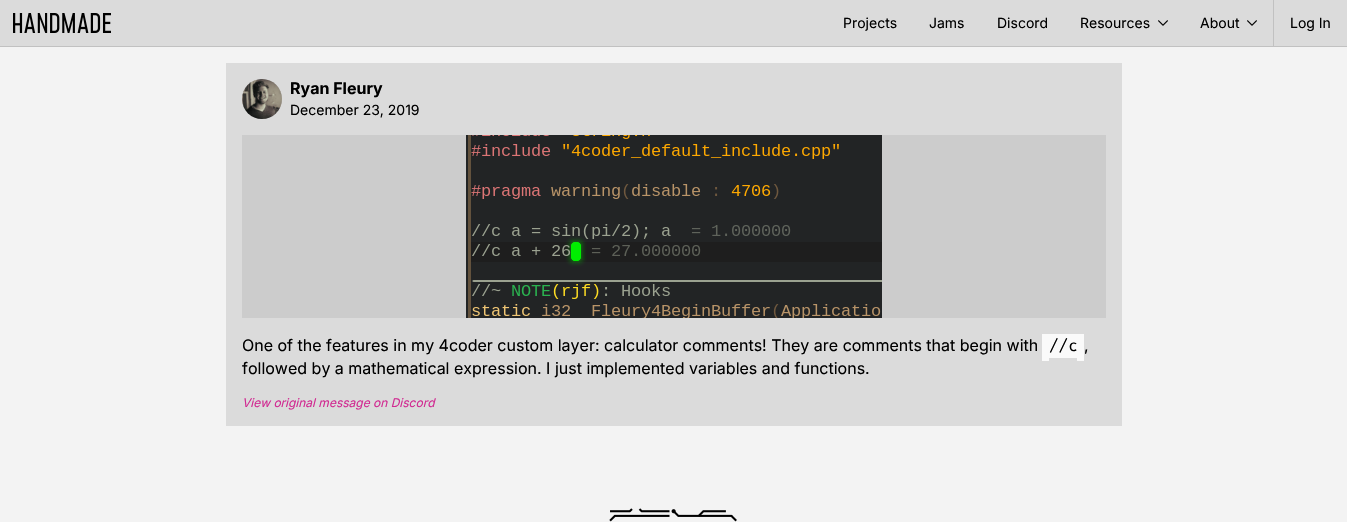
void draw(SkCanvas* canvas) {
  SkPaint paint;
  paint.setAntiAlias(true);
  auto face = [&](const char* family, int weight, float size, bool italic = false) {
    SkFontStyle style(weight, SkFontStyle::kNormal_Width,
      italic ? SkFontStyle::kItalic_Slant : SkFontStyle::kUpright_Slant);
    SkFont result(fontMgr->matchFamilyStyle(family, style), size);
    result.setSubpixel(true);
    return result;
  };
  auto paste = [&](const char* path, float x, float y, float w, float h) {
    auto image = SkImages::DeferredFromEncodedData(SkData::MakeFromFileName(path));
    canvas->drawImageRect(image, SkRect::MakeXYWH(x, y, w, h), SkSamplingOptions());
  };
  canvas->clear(0xfff3f3f3);
  paint.setColor(0xffdbdbdb);
  canvas->drawRect(SkRect::MakeXYWH(0, 0, 1347, 46), paint);
  paint.setColor(0xffc1c1c1);
  canvas->drawRect(SkRect::MakeXYWH(0, 46, 1347, 1), paint);
  paste("img/1.png", 13, 13, 98, 20);
  paste("img/2.png", 1158, 20, 10, 6);
  paste("img/2.png", 1247, 20, 10, 6);
  canvas->drawRect(SkRect::MakeXYWH(1273, 0, 1, 46), paint);
  paint.setColor(0xffdbdbdb);
  canvas->drawRect(SkRect::MakeXYWH(226, 63, 896, 363), paint);
  paint.setColor(0xffc1c1c1);
  canvas->drawCircle(262, 99, 20, paint);
  paste("img/3.png", 242, 79, 40, 40);
  paint.setColor(0xffcccccc);
  canvas->drawRect(SkRect::MakeXYWH(242, 135, 864, 183), paint);
  paste("img/4.png", 466, 135, 416, 183);
  {
    const struct { float x, y, w, h; SkColor color; } items[] = {
      {1042, 334, 7, 27, 0xfffafafa},
      {1049, 334, 28, 24, 0xfffafafa},
      {1077, 334, 7, 27, 0xfffafafa},
    };
    for (auto [x, y, w, h, color] : items) {
      paint.setColor(color);
      canvas->drawRect(SkRect::MakeXYWH(x, y, w, h), paint);
    }
  }
  paste("img/5.png", 609, 508, 128, 14);
  auto f0 = face("Inter", 400, 14);
  paint.setColor(0xff000000);
  {
    const struct { const char* s; float x, y; } items[] = {
      {"Projects", 843, 28},
      {"Jams", 929, 28},
      {"Discord", 997, 28},
      {"Resources", 1080, 28},
      {"About", 1200, 28},
      {"Log In", 1290, 28},
    };
    for (auto [s, x, y] : items) {
      canvas->drawString(s, x, y, f0, paint);
    }
  }
  auto f1 = face("Inter", 700, 16);
  canvas->drawString("Ryan Fleury", 290, 94, f1, paint);
  canvas->drawString("December 23, 2019", 290, 115, f0, paint);
  auto f2 = face("Inter", 400, 16);
  canvas->drawString("One of the features in my 4coder custom layer: calculator comments! They are comments that begin with", 242, 351, f2, paint);
  auto f3 = face("Fira Mono", 400, 16);
  canvas->drawString("//c", 1049, 351, f3, paint);
  canvas->drawString(",", 1084, 351, f2, paint);
  canvas->drawString("followed by a mathematical expression. I just implemented variables and functions.", 242, 374, f2, paint);
  auto f4 = face("Inter", 400, 12, true);
  paint.setColor(0xffd12991);
  canvas->drawString("View original message on Discord", 242, 407, f4, paint);
}
